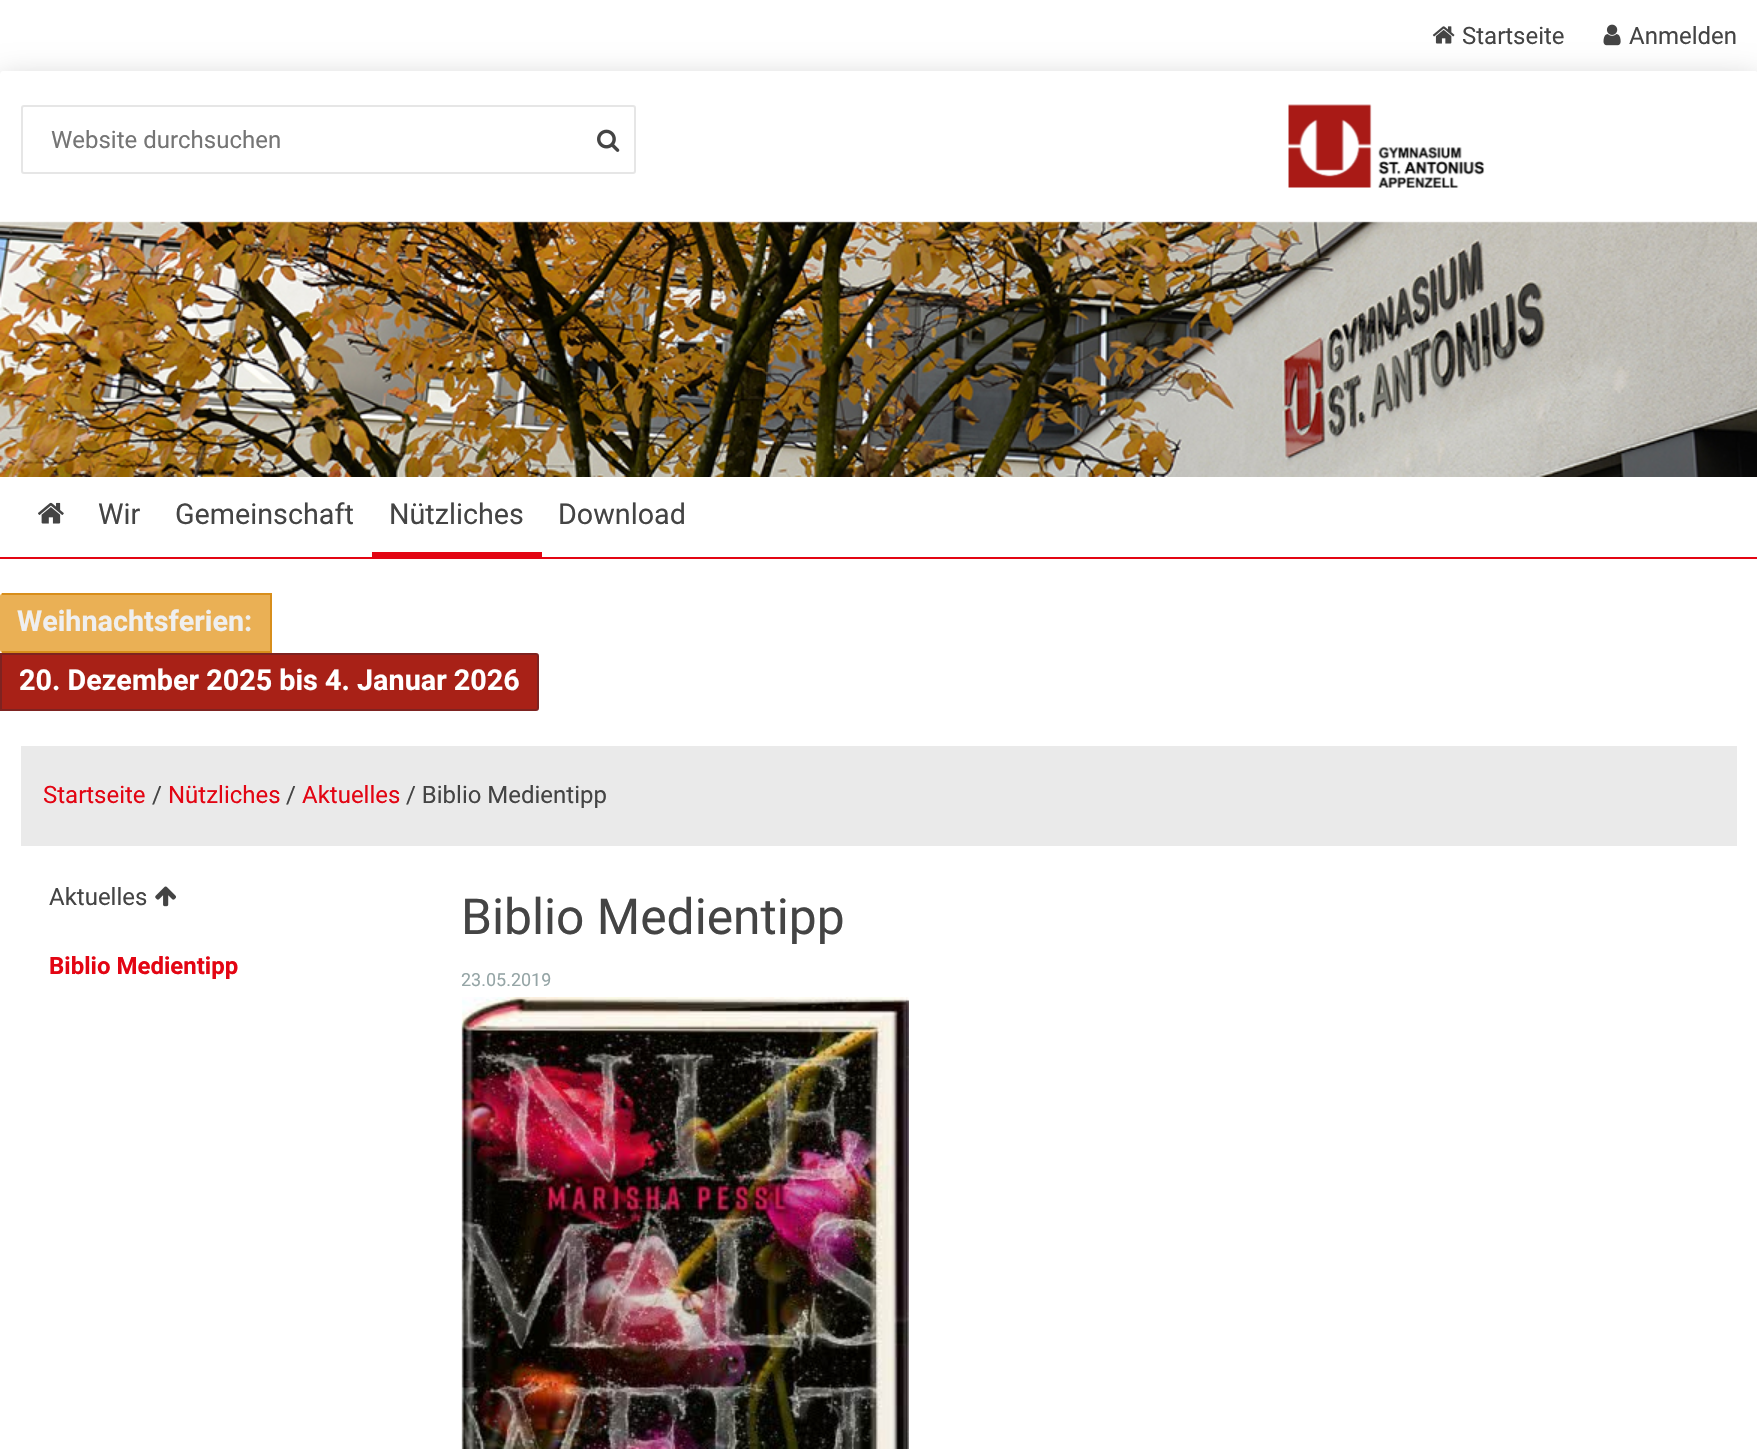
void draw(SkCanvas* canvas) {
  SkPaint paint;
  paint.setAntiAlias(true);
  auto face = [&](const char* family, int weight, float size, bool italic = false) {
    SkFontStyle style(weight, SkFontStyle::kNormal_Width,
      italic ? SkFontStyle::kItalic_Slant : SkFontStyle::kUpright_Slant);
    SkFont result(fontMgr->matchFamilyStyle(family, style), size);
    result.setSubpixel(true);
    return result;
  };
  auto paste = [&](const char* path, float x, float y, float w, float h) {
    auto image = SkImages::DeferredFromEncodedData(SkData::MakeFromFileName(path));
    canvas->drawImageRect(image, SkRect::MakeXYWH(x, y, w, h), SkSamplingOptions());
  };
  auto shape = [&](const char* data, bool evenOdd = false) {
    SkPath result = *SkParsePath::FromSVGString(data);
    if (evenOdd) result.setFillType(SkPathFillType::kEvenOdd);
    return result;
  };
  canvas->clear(0xffffffff);
  paste("img/1.png", 1432, 26, 23, 18);
  paste("img/2.png", 1603, 24, 18, 22);
  canvas->save();
  canvas->clipPath(shape("M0 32H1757V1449H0ZM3 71H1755C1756.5 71 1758 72.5 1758 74V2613C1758 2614.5 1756.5 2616 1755 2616H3C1.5 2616 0 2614.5 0 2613V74C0 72.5 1.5 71 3 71Z", true), true);
  paint.setColor(0x33000000);
  paint.setMaskFilter(SkMaskFilter::MakeBlur(kNormal_SkBlurStyle, 15));
  canvas->drawRoundRect(SkRect::MakeXYWH(0, 78, 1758, 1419), 3, 3, paint);
  paint.setMaskFilter(nullptr);
  canvas->restore();
  paint.setStroke(true);
  paint.setStrokeWidth(2);
  paint.setColor(0xffe6e6e6);
  canvas->drawRoundRect(SkRect::MakeXYWH(22, 106, 613, 67), 2, 2, paint);
  paste("img/3.png", 597, 129, 23, 23);
  paste("img/4.png", 1288, 104, 197, 84);
  paint.setStroke(false);
  paint.setColor(0xffe30513);
  canvas->drawRect(SkRect::MakeXYWH(0, 557, 1757, 2), paint);
  paste("img/5.png", 0, 221, 1757, 256);
  paste("img/6.png", 38, 502, 26, 22);
  canvas->drawRect(SkRect::MakeXYWH(372, 552, 170, 5), paint);
  paint.setColor(0xffeab055);
  canvas->drawPath(shape("M3 593H272V653H3C1.5 653 0 651.5 0 650V596C0 594.5 1.5 593 3 593Z"), paint);
  {
    const struct { float x, y, w, h; SkColor color; } items[] = {
      {2, 593, 270, 2, 0xffd88e1b},
      {270, 593, 2, 60, 0xffd88e1b},
      {2, 651, 270, 2, 0xffd88e1b},
    };
    for (auto [x, y, w, h, color] : items) {
      paint.setColor(color);
      canvas->drawRect(SkRect::MakeXYWH(x, y, w, h), paint);
    }
  }
  paint.setColor(0xffa82117);
  canvas->drawPath(shape("M1 654H536C537 654 538 655 538 656V708C538 709 537 710 536 710H1Z"), paint);
  paint.setStroke(true);
  paint.setColor(0xff7e2321);
  canvas->drawPath(shape("M1 654H536C537 654 538 655 538 656V708C538 709 537 710 536 710H1Z"), paint);
  paint.setStroke(false);
  paint.setColor(0xffeaeaea);
  canvas->drawRect(SkRect::MakeXYWH(21, 746, 1716, 100), paint);
  paste("img/7.png", 155, 886, 21, 21);
  paste("img/8.png", 461, 997, 448, 452);
  auto f0 = face("Roboto", 400, 24);
  paint.setColor(0xff444444);
  canvas->drawString("Startseite", 1462, 44, f0, paint);
  canvas->drawString("Anmelden", 1629, 44, f0, paint);
  paint.setColor(0xff757575);
  canvas->drawString("Website durchsuchen", 51, 148, f0, paint);
  auto f1 = face("Roboto", 400, 28.75f);
  paint.setColor(0xff444444);
  {
    const struct { const char* s; float x, y; } items[] = {
      {"Wir", 98, 524},
      {"Gemeinschaft", 175, 524},
      {"Nützliches", 389, 524},
      {"Download", 558, 524},
    };
    for (auto [s, x, y] : items) {
      canvas->drawString(s, x, y, f1, paint);
    }
  }
  auto f2 = face("Roboto", 700, 28.75f);
  paint.setColor(0xffefefef);
  canvas->drawString("Weihnachtsferien:", 17, 631, f2, paint);
  paint.setColor(0xffffffff);
  canvas->drawString("20. Dezember 2025 bis 4. Januar 2026", 19, 690, f2, paint);
  paint.setColor(0xffe30513);
  canvas->drawString("Startseite", 43, 803, f0, paint);
  paint.setColor(0xff444444);
  canvas->drawString("/", 152, 803, f0, paint);
  paint.setColor(0xffe30513);
  canvas->drawString("Nützliches", 168, 803, f0, paint);
  paint.setColor(0xff444444);
  canvas->drawString("/", 286, 803, f0, paint);
  paint.setColor(0xffe30513);
  canvas->drawString("Aktuelles", 302, 803, f0, paint);
  paint.setColor(0xff444444);
  canvas->drawString("/ Biblio Medientipp", 406, 803, f0, paint);
  canvas->drawString("Aktuelles", 49, 905, f0, paint);
  auto f3 = face("Roboto", 700, 24);
  paint.setColor(0xffe30513);
  canvas->drawString("Biblio Medientipp", 49, 974, f3, paint);
  auto f4 = face("Roboto", 400, 49.75f);
  paint.setColor(0xff444444);
  canvas->drawString("Biblio Medientipp", 461, 934, f4, paint);
  auto f5 = face("Roboto", 400, 18);
  paint.setColor(0xff95a5a6);
  canvas->drawString("23.05.2019", 461, 986, f5, paint);
}
